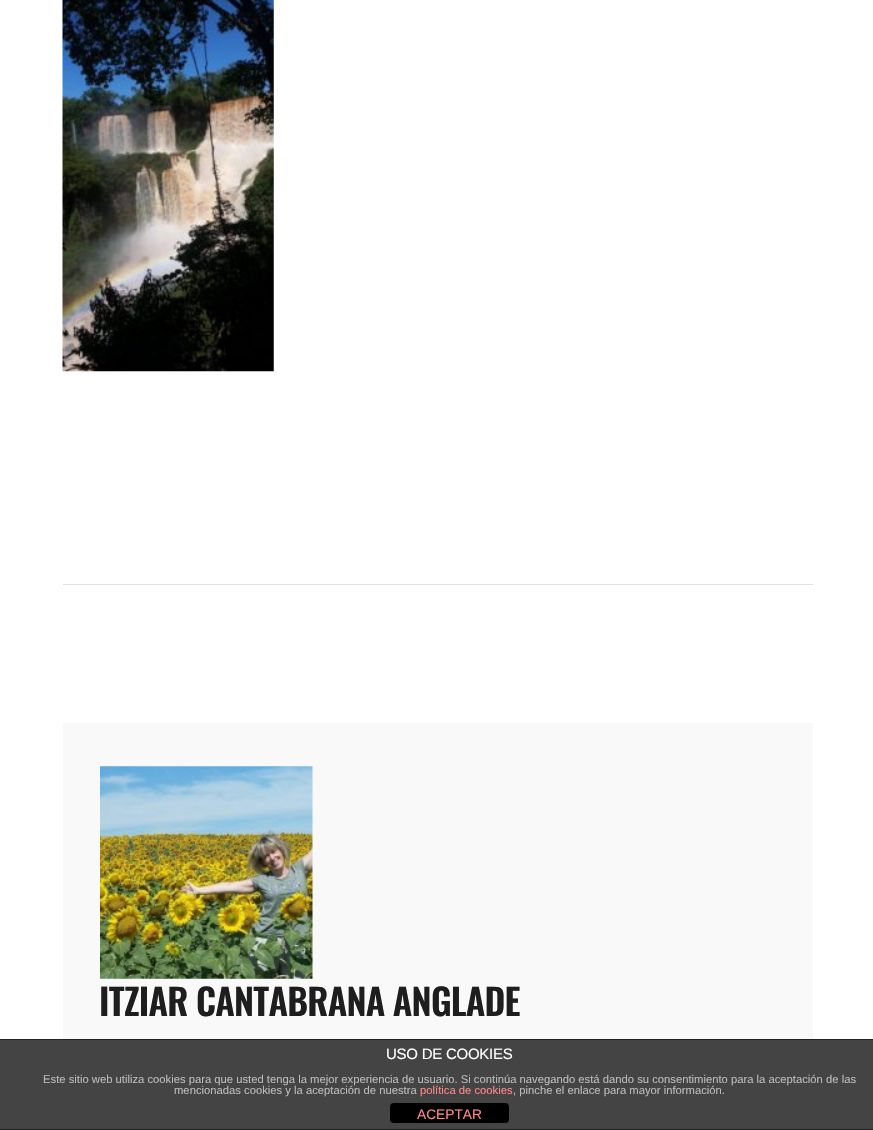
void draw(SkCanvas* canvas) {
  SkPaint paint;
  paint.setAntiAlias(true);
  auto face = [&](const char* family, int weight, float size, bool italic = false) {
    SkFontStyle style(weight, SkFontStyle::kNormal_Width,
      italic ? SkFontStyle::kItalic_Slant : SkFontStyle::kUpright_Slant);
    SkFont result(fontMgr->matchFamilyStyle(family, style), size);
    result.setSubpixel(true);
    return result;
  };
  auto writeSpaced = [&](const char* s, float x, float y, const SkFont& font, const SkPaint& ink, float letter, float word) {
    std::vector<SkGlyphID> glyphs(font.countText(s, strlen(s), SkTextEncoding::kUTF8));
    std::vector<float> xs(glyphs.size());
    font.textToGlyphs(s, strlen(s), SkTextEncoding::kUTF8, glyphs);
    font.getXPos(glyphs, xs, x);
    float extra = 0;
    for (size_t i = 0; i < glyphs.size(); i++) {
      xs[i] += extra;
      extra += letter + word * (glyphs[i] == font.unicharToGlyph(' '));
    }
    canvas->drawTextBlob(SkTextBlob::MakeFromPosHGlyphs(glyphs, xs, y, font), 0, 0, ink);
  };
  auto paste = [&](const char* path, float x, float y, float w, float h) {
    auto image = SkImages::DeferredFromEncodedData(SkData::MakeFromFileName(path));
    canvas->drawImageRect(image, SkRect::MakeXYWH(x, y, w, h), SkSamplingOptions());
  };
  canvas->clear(0xffffffff);
  paste("img/1.png", 62, 0, 212, 372);
  paint.setColor(0xffe1e1e1);
  canvas->drawRect(SkRect::MakeXYWH(63, 584, 750, 1), paint);
  paint.setColor(0xfff9f9f9);
  canvas->drawRect(SkRect::MakeXYWH(63, 723, 750, 316), paint);
  paste("img/2.png", 100, 766, 213, 213);
  {
    const struct { float x, y, w, h; SkColor color; } items[] = {
      {0, 1040, 873, 89, 0xff444444},
      {0, 1039, 873, 1, 0xff222222},
      {0, 1129, 873, 1, 0xff222222},
    };
    for (auto [x, y, w, h, color] : items) {
      paint.setColor(color);
      canvas->drawRect(SkRect::MakeXYWH(x, y, w, h), paint);
    }
  }
  paint.setColor(0xff000000);
  canvas->drawRoundRect(SkRect::MakeXYWH(390, 1103, 119, 20), 4, 4, paint);
  auto f0 = face("Oswald", 600, 36.25f);
  paint.setColor(0xff1e1e1e);
  writeSpaced("ITZIAR CANTABRANA ANGLADE", 99, 1016, f0, paint, -0.75f, 0);
  auto f1 = face("Liberation Sans", 400, 15);
  paint.setColor(0xffffffff);
  writeSpaced("USO DE COOKIES", 386, 1059, f1, paint, -0.25f, 0);
  auto f2 = face("Liberation Sans", 400, 11.25f);
  paint.setColor(0xffbbbbbb);
  canvas->drawString("Este sitio web utiliza cookies para que usted tenga la mejor experiencia de usuario. Si continúa navegando está dando su consentimiento para la aceptación de las", 43, 1083, f2, paint);
  canvas->drawString("mencionadas cookies y la aceptación de nuestra", 174, 1094, f2, paint);
  paint.setColor(0xffff8888);
  canvas->drawString("política de cookies", 420, 1094, f2, paint);
  paint.setColor(0xffbbbbbb);
  canvas->drawString(", pinche el enlace para mayor información.", 513, 1094, f2, paint);
  auto f3 = face("Liberation Sans", 400, 13.75f);
  paint.setColor(0xffff8888);
  canvas->drawString("ACEPTAR", 417, 1119, f3, paint);
}
